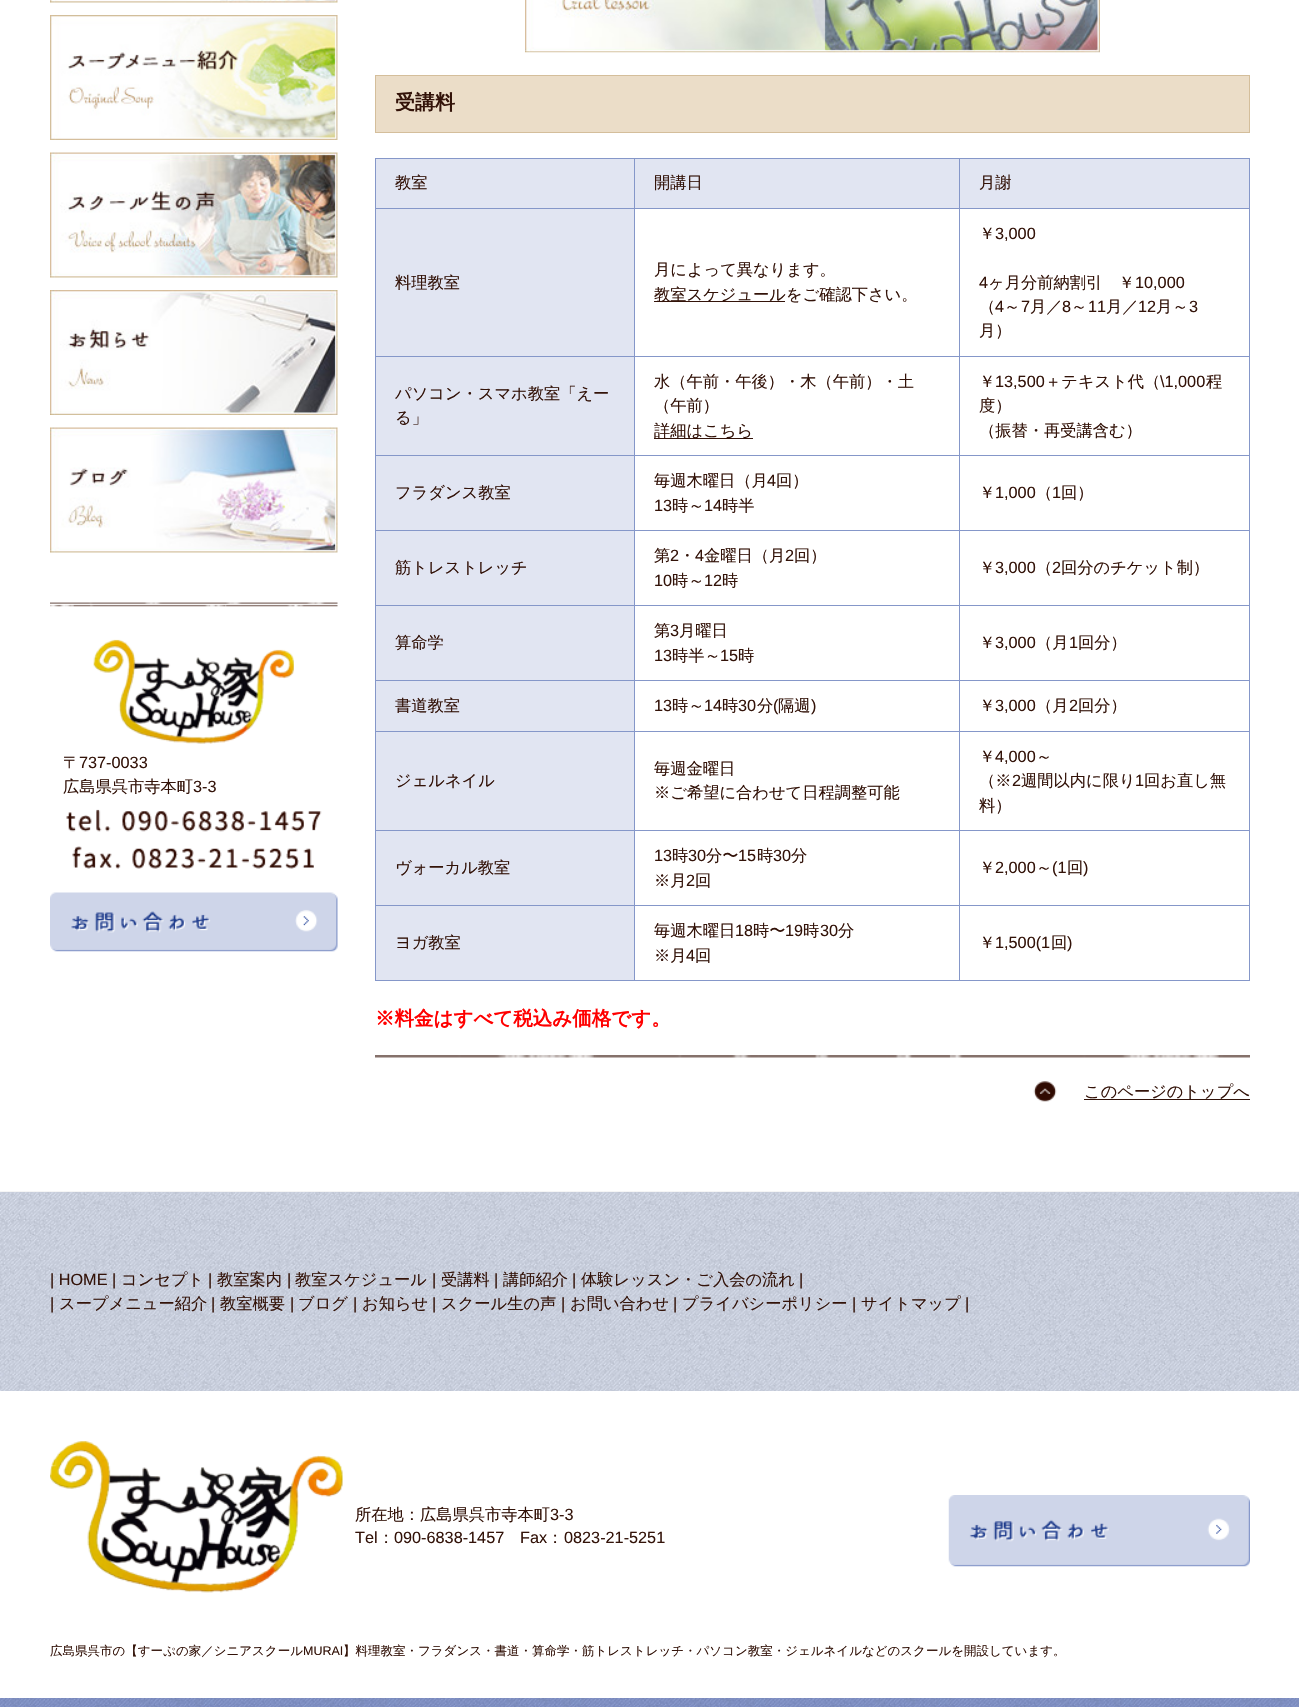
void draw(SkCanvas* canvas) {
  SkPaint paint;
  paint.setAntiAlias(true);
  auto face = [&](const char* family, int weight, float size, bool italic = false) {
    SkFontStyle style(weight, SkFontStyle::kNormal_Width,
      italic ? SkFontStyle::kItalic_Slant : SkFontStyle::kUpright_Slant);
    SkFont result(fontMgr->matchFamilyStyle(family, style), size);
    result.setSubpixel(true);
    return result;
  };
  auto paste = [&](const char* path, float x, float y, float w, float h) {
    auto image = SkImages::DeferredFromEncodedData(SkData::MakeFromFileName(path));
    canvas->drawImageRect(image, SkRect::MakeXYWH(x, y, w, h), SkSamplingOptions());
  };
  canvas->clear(0xffffffff);
  paste("img/1.png", 50, 0, 288, 3);
  paste("img/2.png", 50, 15, 288, 125);
  paste("img/3.png", 50, 152, 288, 126);
  paste("img/4.png", 50, 290, 288, 125);
  paste("img/5.png", 50, 427, 288, 126);
  paste("img/6.png", 50, 602, 288, 142);
  paste("img/7.png", 66, 809, 256, 60);
  paste("img/8.png", 50, 892, 288, 60);
  paste("img/9.png", 525, 0, 575, 53);
  paint.setColor(0xffebddc8);
  canvas->drawRect(SkRect::MakeXYWH(375.5f, 75.5f, 874, 57), paint);
  paint.setStroke(true);
  paint.setStrokeWidth(1);
  paint.setColor(0xffd4be9b);
  canvas->drawRect(SkRect::MakeXYWH(375.5f, 75.5f, 874, 57), paint);
  paint.setStroke(false);
  {
    const struct { float x, y, w, h; SkColor color; } items[] = {
      {376, 159, 258, 49, 0xffe1e5f2},
      {959, 158, 291, 1, 0xff8597c9},
      {959, 208, 291, 1, 0xff8597c9},
      {959, 356, 291, 1, 0xff8597c9},
      {959, 455, 291, 1, 0xff8597c9},
      {959, 530, 291, 1, 0xff8597c9},
      {959, 605, 291, 1, 0xff8597c9},
      {959, 680, 291, 1, 0xff8597c9},
      {959, 731, 291, 1, 0xff8597c9},
      {959, 830, 291, 1, 0xff8597c9},
      {959, 905, 291, 1, 0xff8597c9},
      {1249, 905, 1, 76, 0xff8597c9},
      {959, 980, 291, 1, 0xff8597c9},
      {959, 905, 1, 76, 0xff8597c9},
      {634, 905, 326, 1, 0xff8597c9},
      {959, 830, 1, 76, 0xff8597c9},
      {634, 830, 326, 1, 0xff8597c9},
      {959, 731, 1, 100, 0xff8597c9},
      {634, 731, 326, 1, 0xff8597c9},
      {959, 680, 1, 53, 0xff8597c9},
      {634, 680, 326, 1, 0xff8597c9},
      {959, 605, 1, 76, 0xff8597c9},
      {634, 605, 326, 1, 0xff8597c9},
      {959, 530, 1, 76, 0xff8597c9},
      {634, 530, 326, 1, 0xff8597c9},
      {959, 455, 1, 76, 0xff8597c9},
      {634, 455, 326, 1, 0xff8597c9},
      {959, 356, 1, 100, 0xff8597c9},
      {634, 356, 326, 1, 0xff8597c9},
      {959, 208, 1, 150, 0xff8597c9},
      {634, 208, 326, 1, 0xff8597c9},
      {959, 158, 1, 51, 0xff8597c9},
      {634, 158, 326, 1, 0xff8597c9},
      {634, 980, 326, 1, 0xff8597c9},
      {634, 905, 1, 76, 0xff8597c9},
      {375, 905, 260, 1, 0xff8597c9},
      {634, 830, 1, 76, 0xff8597c9},
      {375, 830, 260, 1, 0xff8597c9},
      {634, 731, 1, 100, 0xff8597c9},
      {375, 731, 260, 1, 0xff8597c9},
      {634, 680, 1, 53, 0xff8597c9},
      {375, 680, 260, 1, 0xff8597c9},
      {634, 605, 1, 76, 0xff8597c9},
      {375, 605, 260, 1, 0xff8597c9},
      {634, 530, 1, 76, 0xff8597c9},
      {375, 530, 260, 1, 0xff8597c9},
      {634, 455, 1, 76, 0xff8597c9},
      {375, 455, 260, 1, 0xff8597c9},
      {634, 356, 1, 100, 0xff8597c9},
      {375, 356, 260, 1, 0xff8597c9},
      {634, 208, 1, 150, 0xff8597c9},
      {375, 208, 260, 1, 0xff8597c9},
      {634, 158, 1, 51, 0xff8597c9},
      {375, 158, 260, 1, 0xff8597c9},
      {375, 980, 260, 1, 0xff8597c9},
      {375, 905, 1, 76, 0xff8597c9},
      {375, 830, 1, 76, 0xff8597c9},
      {375, 731, 1, 100, 0xff8597c9},
      {375, 680, 1, 53, 0xff8597c9},
      {375, 605, 1, 76, 0xff8597c9},
      {375, 530, 1, 76, 0xff8597c9},
      {375, 455, 1, 76, 0xff8597c9},
      {375, 356, 1, 100, 0xff8597c9},
      {375, 208, 1, 150, 0xff8597c9},
      {375, 158, 1, 51, 0xff8597c9},
      {635, 159, 324, 49, 0xffe1e5f2},
      {960, 159, 289, 49, 0xffe1e5f2},
      {1249, 830, 1, 76, 0xff8597c9},
      {1249, 731, 1, 100, 0xff8597c9},
      {1249, 680, 1, 53, 0xff8597c9},
      {1249, 605, 1, 76, 0xff8597c9},
      {1249, 530, 1, 76, 0xff8597c9},
      {1249, 455, 1, 76, 0xff8597c9},
      {1249, 356, 1, 100, 0xff8597c9},
      {1249, 208, 1, 150, 0xff8597c9},
      {1249, 158, 1, 51, 0xff8597c9},
      {376, 209, 258, 147, 0xffe1e5f2},
      {654, 301, 131, 1, 0xff331309},
      {376, 357, 258, 98, 0xffe1e5f2},
      {654, 438, 99, 1, 0xff331309},
      {376, 456, 258, 74, 0xffe1e5f2},
      {376, 531, 258, 74, 0xffe1e5f2},
      {376, 606, 258, 74, 0xffe1e5f2},
      {376, 681, 258, 50, 0xffe1e5f2},
      {376, 732, 258, 98, 0xffe1e5f2},
      {376, 831, 258, 74, 0xffe1e5f2},
      {376, 906, 258, 74, 0xffe1e5f2},
    };
    for (auto [x, y, w, h, color] : items) {
      paint.setColor(color);
      canvas->drawRect(SkRect::MakeXYWH(x, y, w, h), paint);
    }
  }
  paste("img/10.png", 375, 1055, 875, 3);
  paste("img/11.png", 1033, 1081, 24, 21);
  paint.setColor(0xff331309);
  canvas->drawRect(SkRect::MakeXYWH(1084, 1099, 166, 1), paint);
  paste("img/12.png", 0, 1192, 1299, 199);
  paint.setColor(0xfff5f5f5);
  canvas->drawRect(SkRect::MakeXYWH(0, 1191, 1299, 1), paint);
  paste("img/13.png", 0, 1698, 1299, 9);
  paste("img/14.png", 50, 1441, 293, 152);
  paste("img/15.png", 948, 1495, 302, 72);
  auto f0 = face("WenQuanYi Zen Hei", 500, 16.25f);
  paint.setColor(0xff331309);
  canvas->drawString("〒", 63, 768, f0, paint);
  auto f1 = face("Liberation Sans", 400, 16.25f);
  canvas->drawString("737-0033", 79, 768, f1, paint);
  canvas->drawString("広島県呉市寺本町", 63, 792, f0, paint);
  canvas->drawString("3-3", 193, 792, f1, paint);
  auto f2 = face("WenQuanYi Zen Hei", 700, 20);
  canvas->drawString("受講料", 395, 109, f2, paint);
  {
    const struct { const char* s; float x, y; } items[] = {
      {"教室", 395, 188},
      {"開講日", 654, 188},
      {"月謝", 979, 188},
      {"料理教室", 395, 288},
      {"月によって異なります。", 654, 275},
      {"教室スケジュールをご確認下さい。", 654, 300},
      {"￥", 979, 239},
    };
    for (auto [s, x, y] : items) {
      canvas->drawString(s, x, y, f0, paint);
    }
  }
  canvas->drawString("3,000", 995, 239, f1, paint);
  canvas->drawString("4", 979, 288, f1, paint);
  canvas->drawString("ヶ月分前納割引　￥", 988, 288, f0, paint);
  canvas->drawString("10,000", 1135, 288, f1, paint);
  canvas->drawString("（", 979, 312, f0, paint);
  canvas->drawString("4", 995, 312, f1, paint);
  canvas->drawString("～", 1004, 312, f0, paint);
  canvas->drawString("7", 1021, 312, f1, paint);
  canvas->drawString("月／", 1030, 312, f0, paint);
  canvas->drawString("8", 1062, 312, f1, paint);
  canvas->drawString("～", 1071, 312, f0, paint);
  canvas->drawString("11", 1088, 312, f1, paint);
  canvas->drawString("月／", 1106, 312, f0, paint);
  canvas->drawString("12", 1138, 312, f1, paint);
  canvas->drawString("月～", 1156, 312, f0, paint);
  canvas->drawString("3", 1189, 312, f1, paint);
  {
    const struct { const char* s; float x, y; } items[] = {
      {"月）", 979, 336},
      {"パソコン・スマホ教室「えー", 395, 399},
      {"る」", 395, 423},
      {"水（午前・午後）・木（午前）・土", 654, 387},
      {"（午前）", 654, 411},
      {"詳細はこちら", 654, 436},
      {"￥", 979, 387},
    };
    for (auto [s, x, y] : items) {
      canvas->drawString(s, x, y, f0, paint);
    }
  }
  canvas->drawString("13,500", 995, 387, f1, paint);
  canvas->drawString("＋テキスト代（", 1045, 387, f0, paint);
  canvas->drawString("\\1,000", 1160, 387, f1, paint);
  {
    const struct { const char* s; float x, y; } items[] = {
      {"程", 1206, 387},
      {"度）", 979, 411},
      {"（振替・再受講含む）", 979, 436},
      {"フラダンス教室", 395, 498},
      {"毎週木曜日（月", 654, 486},
    };
    for (auto [s, x, y] : items) {
      canvas->drawString(s, x, y, f0, paint);
    }
  }
  canvas->drawString("4", 767, 486, f1, paint);
  canvas->drawString("回）", 776, 486, f0, paint);
  canvas->drawString("13", 654, 511, f1, paint);
  canvas->drawString("時～", 672, 511, f0, paint);
  canvas->drawString("14", 704, 511, f1, paint);
  canvas->drawString("時半", 722, 511, f0, paint);
  canvas->drawString("￥", 979, 498, f0, paint);
  canvas->drawString("1,000", 995, 498, f1, paint);
  canvas->drawString("（", 1036, 498, f0, paint);
  canvas->drawString("1", 1052, 498, f1, paint);
  {
    const struct { const char* s; float x, y; } items[] = {
      {"回）", 1061, 498},
      {"筋トレストレッチ", 395, 573},
      {"第", 654, 561},
    };
    for (auto [s, x, y] : items) {
      canvas->drawString(s, x, y, f0, paint);
    }
  }
  canvas->drawString("2", 670, 561, f1, paint);
  canvas->drawString("・", 679, 561, f0, paint);
  canvas->drawString("4", 695, 561, f1, paint);
  canvas->drawString("金曜日（月", 704, 561, f0, paint);
  canvas->drawString("2", 785, 561, f1, paint);
  canvas->drawString("回）", 794, 561, f0, paint);
  canvas->drawString("10", 654, 586, f1, paint);
  canvas->drawString("時～", 672, 586, f0, paint);
  canvas->drawString("12", 704, 586, f1, paint);
  canvas->drawString("時", 722, 586, f0, paint);
  canvas->drawString("￥", 979, 573, f0, paint);
  canvas->drawString("3,000", 995, 573, f1, paint);
  canvas->drawString("（", 1036, 573, f0, paint);
  canvas->drawString("2", 1052, 573, f1, paint);
  {
    const struct { const char* s; float x, y; } items[] = {
      {"回分のチケット制）", 1061, 573},
      {"算命学", 395, 648},
      {"第", 654, 636},
    };
    for (auto [s, x, y] : items) {
      canvas->drawString(s, x, y, f0, paint);
    }
  }
  canvas->drawString("3", 670, 636, f1, paint);
  canvas->drawString("月曜日", 679, 636, f0, paint);
  canvas->drawString("13", 654, 661, f1, paint);
  canvas->drawString("時半～", 672, 661, f0, paint);
  canvas->drawString("15", 720, 661, f1, paint);
  canvas->drawString("時", 738, 661, f0, paint);
  canvas->drawString("￥", 979, 648, f0, paint);
  canvas->drawString("3,000", 995, 648, f1, paint);
  canvas->drawString("（月", 1036, 648, f0, paint);
  canvas->drawString("1", 1069, 648, f1, paint);
  canvas->drawString("回分）", 1078, 648, f0, paint);
  canvas->drawString("書道教室", 395, 711, f0, paint);
  canvas->drawString("13", 654, 711, f1, paint);
  canvas->drawString("時～", 672, 711, f0, paint);
  canvas->drawString("14", 704, 711, f1, paint);
  canvas->drawString("時", 722, 711, f0, paint);
  canvas->drawString("30", 738, 711, f1, paint);
  canvas->drawString("分", 757, 711, f0, paint);
  canvas->drawString("(", 773, 711, f1, paint);
  canvas->drawString("隔週", 778, 711, f0, paint);
  canvas->drawString(")", 811, 711, f1, paint);
  canvas->drawString("￥", 979, 711, f0, paint);
  canvas->drawString("3,000", 995, 711, f1, paint);
  canvas->drawString("（月", 1036, 711, f0, paint);
  canvas->drawString("2", 1069, 711, f1, paint);
  {
    const struct { const char* s; float x, y; } items[] = {
      {"回分）", 1078, 711},
      {"ジェルネイル", 395, 786},
      {"毎週金曜日", 654, 774},
      {"※ご希望に合わせて日程調整可能", 654, 798},
      {"￥", 979, 762},
    };
    for (auto [s, x, y] : items) {
      canvas->drawString(s, x, y, f0, paint);
    }
  }
  canvas->drawString("4,000", 995, 762, f1, paint);
  canvas->drawString("～", 1036, 762, f0, paint);
  canvas->drawString("（※", 979, 786, f0, paint);
  canvas->drawString("2", 1012, 786, f1, paint);
  canvas->drawString("週間以内に限り", 1021, 786, f0, paint);
  canvas->drawString("1", 1135, 786, f1, paint);
  {
    const struct { const char* s; float x, y; } items[] = {
      {"回お直し無", 1144, 786},
      {"料）", 979, 811},
      {"ヴォーカル教室", 395, 873},
    };
    for (auto [s, x, y] : items) {
      canvas->drawString(s, x, y, f0, paint);
    }
  }
  canvas->drawString("13", 654, 861, f1, paint);
  canvas->drawString("時", 672, 861, f0, paint);
  canvas->drawString("30", 688, 861, f1, paint);
  canvas->drawString("分〜", 706, 861, f0, paint);
  canvas->drawString("15", 738, 861, f1, paint);
  canvas->drawString("時", 757, 861, f0, paint);
  canvas->drawString("30", 773, 861, f1, paint);
  canvas->drawString("分", 791, 861, f0, paint);
  canvas->drawString("※月", 654, 886, f0, paint);
  canvas->drawString("2", 686, 886, f1, paint);
  canvas->drawString("回", 695, 886, f0, paint);
  canvas->drawString("￥", 979, 873, f0, paint);
  canvas->drawString("2,000", 995, 873, f1, paint);
  canvas->drawString("～", 1036, 873, f0, paint);
  canvas->drawString("(1", 1052, 873, f1, paint);
  canvas->drawString("回", 1067, 873, f0, paint);
  canvas->drawString(")", 1083, 873, f1, paint);
  canvas->drawString("ヨガ教室", 395, 948, f0, paint);
  canvas->drawString("毎週木曜日", 654, 936, f0, paint);
  canvas->drawString("18", 735, 936, f1, paint);
  canvas->drawString("時〜", 753, 936, f0, paint);
  canvas->drawString("19", 785, 936, f1, paint);
  canvas->drawString("時", 803, 936, f0, paint);
  canvas->drawString("30", 820, 936, f1, paint);
  canvas->drawString("分", 838, 936, f0, paint);
  canvas->drawString("※月", 654, 961, f0, paint);
  canvas->drawString("4", 686, 961, f1, paint);
  canvas->drawString("回", 695, 961, f0, paint);
  canvas->drawString("￥", 979, 948, f0, paint);
  canvas->drawString("1,500(1", 995, 948, f1, paint);
  canvas->drawString("回", 1051, 948, f0, paint);
  canvas->drawString(")", 1067, 948, f1, paint);
  auto f3 = face("WenQuanYi Zen Hei", 700, 19.5f);
  paint.setColor(0xffff0000);
  canvas->drawString("※料金はすべて税込み価格です。", 375, 1025, f3, paint);
  paint.setColor(0xff331309);
  canvas->drawString("このページのトップへ", 1084, 1097, f0, paint);
  canvas->drawString("| HOME |", 50, 1285, f1, paint);
  canvas->drawString("コンセプト", 121, 1285, f0, paint);
  canvas->drawString("|", 208, 1285, f1, paint);
  canvas->drawString("教室案内", 217, 1285, f0, paint);
  canvas->drawString("|", 287, 1285, f1, paint);
  canvas->drawString("教室スケジュール", 295, 1285, f0, paint);
  canvas->drawString("|", 432, 1285, f1, paint);
  canvas->drawString("受講料", 441, 1285, f0, paint);
  canvas->drawString("|", 494, 1285, f1, paint);
  canvas->drawString("講師紹介", 503, 1285, f0, paint);
  canvas->drawString("|", 572, 1285, f1, paint);
  canvas->drawString("体験レッスン・ご入会の流れ", 581, 1285, f0, paint);
  canvas->drawString("|", 799, 1285, f1, paint);
  canvas->drawString("|", 50, 1309, f1, paint);
  canvas->drawString("スープメニュー紹介", 59, 1309, f0, paint);
  canvas->drawString("|", 211, 1309, f1, paint);
  canvas->drawString("教室概要", 220, 1309, f0, paint);
  canvas->drawString("|", 290, 1309, f1, paint);
  canvas->drawString("ブログ", 298, 1309, f0, paint);
  canvas->drawString("|", 353, 1309, f1, paint);
  canvas->drawString("お知らせ", 362, 1309, f0, paint);
  canvas->drawString("|", 432, 1309, f1, paint);
  canvas->drawString("スクール生の声", 441, 1309, f0, paint);
  canvas->drawString("|", 561, 1309, f1, paint);
  canvas->drawString("お問い合わせ", 570, 1309, f0, paint);
  canvas->drawString("|", 673, 1309, f1, paint);
  canvas->drawString("プライバシーポリシー", 682, 1309, f0, paint);
  canvas->drawString("|", 852, 1309, f1, paint);
  canvas->drawString("サイトマップ", 861, 1309, f0, paint);
  canvas->drawString("|", 965, 1309, f1, paint);
  canvas->drawString("所在地：広島県呉市寺本町", 355, 1520, f0, paint);
  canvas->drawString("3-3", 550, 1520, f1, paint);
  canvas->drawString("Tel", 355, 1543, f1, paint);
  canvas->drawString("：", 378, 1543, f0, paint);
  canvas->drawString("090-6838-1457", 394, 1543, f1, paint);
  canvas->drawString("Fax", 520, 1543, f1, paint);
  canvas->drawString("：", 547, 1543, f0, paint);
  canvas->drawString("0823-21-5251", 564, 1543, f1, paint);
  auto f4 = face("WenQuanYi Zen Hei", 500, 12.5f);
  canvas->drawString("広島県呉市の【すーぷの家／シニアスクール", 50, 1655, f4, paint);
  auto f5 = face("Liberation Sans", 400, 12.5f);
  canvas->drawString("MURAI", 303, 1655, f5, paint);
  canvas->drawString("】料理教室・フラダンス・書道・算命学・筋トレストレッチ・パソコン教室・ジェルネイルなどのスクールを開設しています。", 343, 1655, f4, paint);
}
